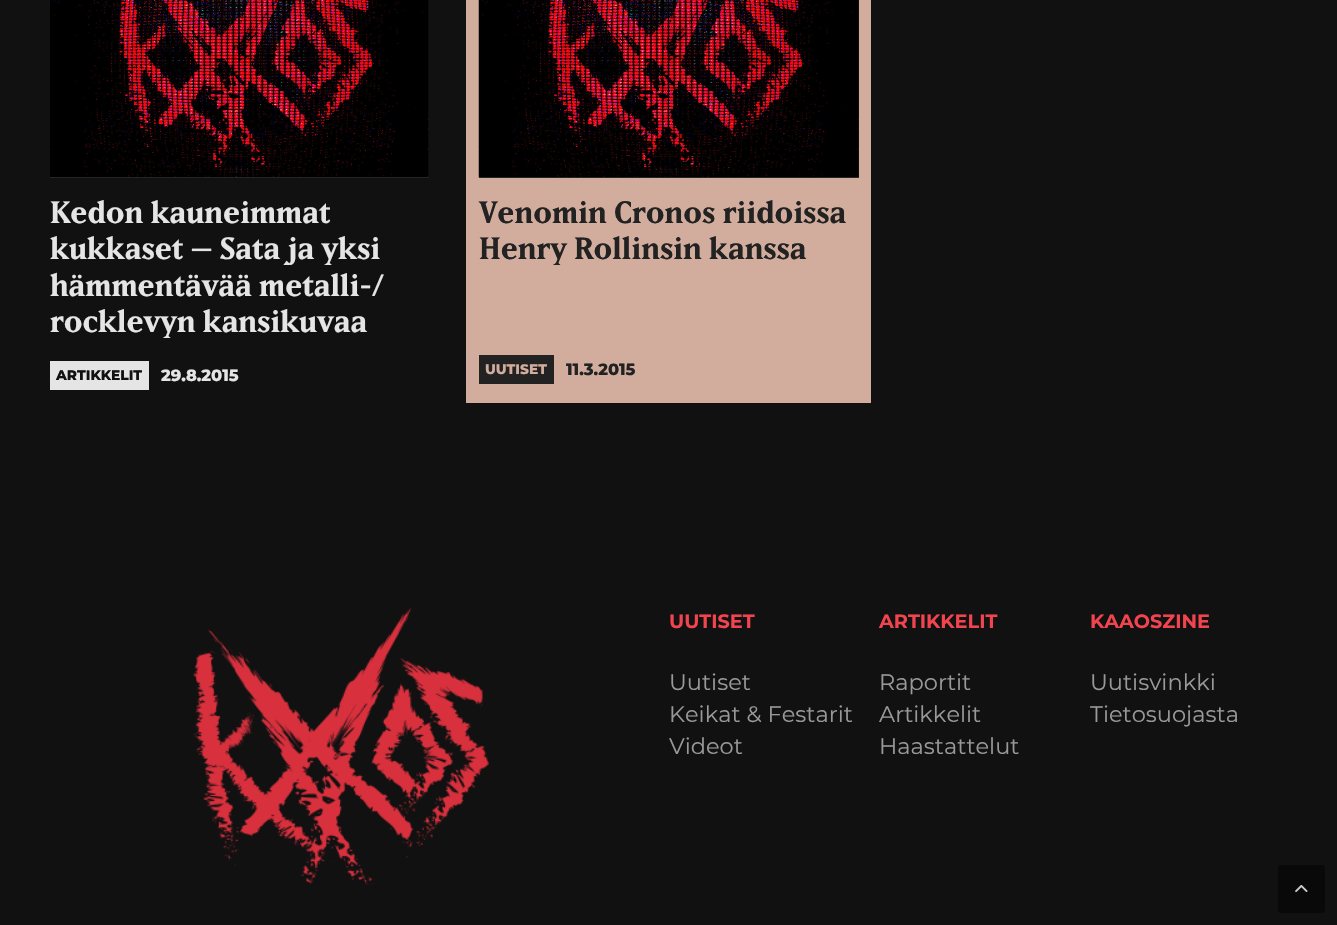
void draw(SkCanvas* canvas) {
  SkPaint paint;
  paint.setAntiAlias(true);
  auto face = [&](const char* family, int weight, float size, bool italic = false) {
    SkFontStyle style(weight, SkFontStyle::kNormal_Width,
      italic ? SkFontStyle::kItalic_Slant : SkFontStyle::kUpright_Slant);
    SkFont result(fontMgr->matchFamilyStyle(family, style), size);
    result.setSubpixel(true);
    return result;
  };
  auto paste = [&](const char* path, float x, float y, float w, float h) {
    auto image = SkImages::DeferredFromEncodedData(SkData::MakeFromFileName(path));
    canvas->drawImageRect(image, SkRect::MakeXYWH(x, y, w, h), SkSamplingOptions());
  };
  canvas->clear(0xff111111);
  paint.setColor(0xff30302f);
  canvas->drawRect(SkRect::MakeXYWH(50, 0, 379, 178), paint);
  paste("img/1.png", 50, 0, 379, 178);
  {
    const struct { float x, y, w, h; SkColor color; } items[] = {
      {50, 361, 99, 29, 0xffe5e5e5},
      {466, 0, 405, 403, 0xffd2ad9d},
      {479, 0, 380, 178, 0xff30302f},
    };
    for (auto [x, y, w, h, color] : items) {
      paint.setColor(color);
      canvas->drawRect(SkRect::MakeXYWH(x, y, w, h), paint);
    }
  }
  paste("img/2.png", 478, 0, 381, 178);
  paint.setColor(0xff222222);
  canvas->drawRect(SkRect::MakeXYWH(479, 355, 75, 29), paint);
  paste("img/3.png", 193, 608, 296, 277);
  paint.setColor(0xff090909);
  canvas->drawRoundRect(SkRect::MakeXYWH(1278, 865, 47, 48), 3, 3, paint);
  paste("img/4.png", 1295, 885, 13, 7);
  auto f0 = face("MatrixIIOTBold", 700, 30.4f);
  paint.setColor(0xffe5e5e5);
  {
    const struct { const char* s; float x, y; } items[] = {
      {"Kedon kauneimmat", 50, 223},
      {"kukkaset – Sata ja yksi", 50, 259},
      {"hämmentävää metalli-/", 50, 296},
      {"rocklevyn kansikuvaa", 50, 332},
    };
    for (auto [s, x, y] : items) {
      canvas->drawString(s, x, y, f0, paint);
    }
  }
  auto f1 = face("Montserrat", 800, 13.75f);
  paint.setColor(0xff111111);
  canvas->drawString("ARTIKKELIT", 56, 380, f1, paint);
  auto f2 = face("Montserrat", 800, 16.25f);
  paint.setColor(0xffe5e5e5);
  canvas->drawString("29.8.2015", 161, 381, f2, paint);
  paint.setColor(0xff222222);
  canvas->drawString("Venomin Cronos riidoissa", 479, 223, f0, paint);
  canvas->drawString("Henry Rollinsin kanssa", 479, 259, f0, paint);
  paint.setColor(0xffd2ad9d);
  canvas->drawString("UUTISET", 485, 374, f1, paint);
  paint.setColor(0xff222222);
  canvas->drawString("11.3.2015", 566, 375, f2, paint);
  auto f3 = face("Montserrat", 700, 19.25f);
  paint.setColor(0xfff2444e);
  canvas->drawString("UUTISET", 669, 628, f3, paint);
  auto f4 = face("Montserrat", 400, 22.5f);
  paint.setColor(0xff999999);
  {
    const struct { const char* s; float x, y; } items[] = {
      {"Uutiset", 669, 690},
      {"Keikat & Festarit", 669, 722},
      {"Videot", 669, 754},
    };
    for (auto [s, x, y] : items) {
      canvas->drawString(s, x, y, f4, paint);
    }
  }
  paint.setColor(0xfff2444e);
  canvas->drawString("ARTIKKELIT", 879, 628, f3, paint);
  paint.setColor(0xff999999);
  {
    const struct { const char* s; float x, y; } items[] = {
      {"Raportit", 879, 690},
      {"Artikkelit", 879, 722},
      {"Haastattelut", 879, 754},
    };
    for (auto [s, x, y] : items) {
      canvas->drawString(s, x, y, f4, paint);
    }
  }
  paint.setColor(0xfff2444e);
  canvas->drawString("KAAOSZINE", 1090, 628, f3, paint);
  paint.setColor(0xff999999);
  canvas->drawString("Uutisvinkki", 1090, 690, f4, paint);
  canvas->drawString("Tietosuojasta", 1090, 722, f4, paint);
}
